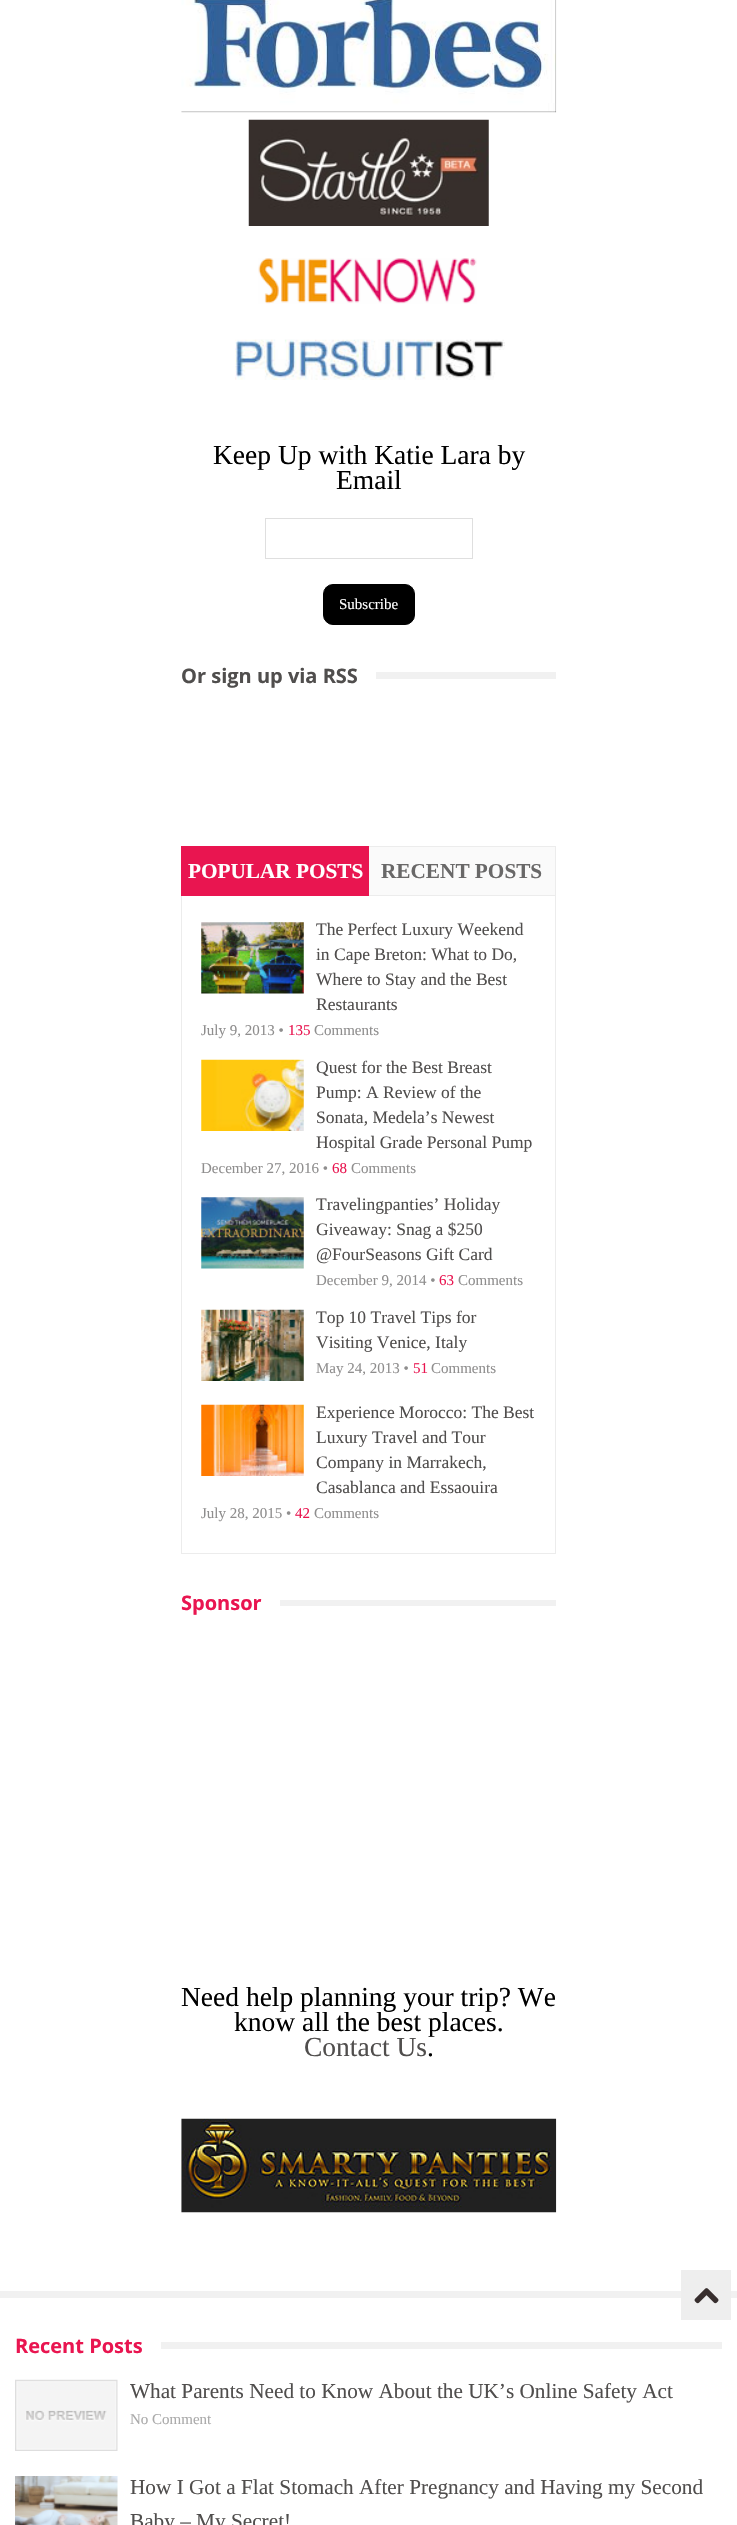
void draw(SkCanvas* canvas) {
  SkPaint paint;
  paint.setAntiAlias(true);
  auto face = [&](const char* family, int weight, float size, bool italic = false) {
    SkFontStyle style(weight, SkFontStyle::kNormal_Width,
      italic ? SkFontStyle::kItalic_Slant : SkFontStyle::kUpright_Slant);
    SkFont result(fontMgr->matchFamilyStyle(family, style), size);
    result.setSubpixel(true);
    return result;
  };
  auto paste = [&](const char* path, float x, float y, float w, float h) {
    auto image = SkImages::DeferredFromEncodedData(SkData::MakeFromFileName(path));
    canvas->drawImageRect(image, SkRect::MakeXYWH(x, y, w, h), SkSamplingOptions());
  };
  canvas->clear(0xffffffff);
  paste("img/1.png", 181, 0, 376, 113);
  paste("img/2.png", 248, 119, 241, 107);
  paste("img/3.png", 258, 258, 219, 46);
  paste("img/4.png", 235, 339, 270, 41);
  paint.setStroke(true);
  paint.setStrokeWidth(1);
  paint.setColor(0xffdfdfdf);
  canvas->drawRect(SkRect::MakeXYWH(265.5f, 518.5f, 207, 40), paint);
  paint.setStroke(false);
  paint.setColor(0xff000000);
  canvas->drawRoundRect(SkRect::MakeXYWH(323.5f, 584.5f, 91, 40), 9.5f, 9.5f, paint);
  paint.setStroke(true);
  canvas->drawRoundRect(SkRect::MakeXYWH(323.5f, 584.5f, 91, 40), 9.5f, 9.5f, paint);
  paint.setStroke(false);
  paint.setColor(0xfff1f1f1);
  canvas->drawRect(SkRect::MakeXYWH(376, 672, 180, 7), paint);
  paint.setStroke(true);
  paint.setColor(0xffececec);
  canvas->drawRect(SkRect::MakeXYWH(181.5f, 895.5f, 374, 658), paint);
  paint.setStroke(false);
  {
    const struct { float x, y, w, h; SkColor color; } items[] = {
      {181, 846, 188, 50, 0xffe91550},
      {369, 847, 186, 48, 0xfffafafa},
      {369, 846, 187, 1, 0xffececec},
      {555, 846, 1, 50, 0xffececec},
    };
    for (auto [x, y, w, h, color] : items) {
      paint.setColor(color);
      canvas->drawRect(SkRect::MakeXYWH(x, y, w, h), paint);
    }
  }
  paste("img/5.png", 201, 922, 103, 72);
  paste("img/6.png", 201, 1059, 103, 72);
  paste("img/7.png", 201, 1197, 103, 72);
  paste("img/8.png", 201, 1309, 103, 72);
  paste("img/9.png", 201, 1404, 103, 72);
  paint.setColor(0xfff1f1f1);
  canvas->drawRect(SkRect::MakeXYWH(280, 1600, 276, 6), paint);
  paste("img/10.png", 181, 2118, 376, 95);
  canvas->drawRect(SkRect::MakeXYWH(0, 2291, 737, 7), paint);
  paint.setColor(0xffeeeeee);
  canvas->drawRect(SkRect::MakeXYWH(681, 2270, 50, 50), paint);
  paste("img/11.png", 694, 2288, 25, 16);
  paint.setColor(0xfff1f1f1);
  canvas->drawRect(SkRect::MakeXYWH(161, 2342, 561, 7), paint);
  paste("img/12.png", 15, 2379, 103, 72);
  paste("img/13.png", 15, 2476, 103, 49);
  auto f0 = face("Liberation Serif", 400, 27.5f);
  paint.setColor(0xff000000);
  canvas->drawString("Keep Up with Katie Lara by", 213, 464, f0, paint);
  canvas->drawString("Email", 336, 489, f0, paint);
  auto f1 = face("Liberation Serif", 400, 15);
  paint.setColor(0xffffffff);
  canvas->drawString("Subscribe", 339, 609, f1, paint);
  auto f2 = face("Open Sans", 700, 20);
  paint.setColor(0xff504e4d);
  canvas->drawString("Or sign up via RSS", 181, 683, f2, paint);
  auto f3 = face("Liberation Serif", 700, 21.25f);
  paint.setColor(0xffffffff);
  canvas->drawString("POPULAR POSTS", 188, 878, f3, paint);
  paint.setColor(0xff696868);
  canvas->drawString("RECENT POSTS", 381, 878, f3, paint);
  auto f4 = face("Liberation Serif", 400, 17.5f);
  paint.setColor(0xff504e4d);
  {
    const struct { const char* s; float x, y; } items[] = {
      {"The Perfect Luxury Weekend", 316, 935},
      {"in Cape Breton: What to Do,", 316, 960},
      {"Where to Stay and the Best", 316, 985},
      {"Restaurants", 316, 1010},
    };
    for (auto [s, x, y] : items) {
      canvas->drawString(s, x, y, f4, paint);
    }
  }
  paint.setColor(0xff8f8e8e);
  canvas->drawString("July 9, 2013 •", 201, 1035, f1, paint);
  paint.setColor(0xffe91550);
  canvas->drawString("135", 288, 1035, f1, paint);
  paint.setColor(0xff8f8e8e);
  canvas->drawString("Comments", 314, 1035, f1, paint);
  paint.setColor(0xff504e4d);
  {
    const struct { const char* s; float x, y; } items[] = {
      {"Quest for the Best Breast", 316, 1073},
      {"Pump: A Review of the", 316, 1098},
      {"Sonata, Medela’s Newest", 316, 1123},
      {"Hospital Grade Personal Pump", 316, 1148},
    };
    for (auto [s, x, y] : items) {
      canvas->drawString(s, x, y, f4, paint);
    }
  }
  paint.setColor(0xff8f8e8e);
  canvas->drawString("December 27, 2016 •", 201, 1173, f1, paint);
  paint.setColor(0xffe91550);
  canvas->drawString("68", 332, 1173, f1, paint);
  paint.setColor(0xff8f8e8e);
  canvas->drawString("Comments", 351, 1173, f1, paint);
  paint.setColor(0xff504e4d);
  {
    const struct { const char* s; float x, y; } items[] = {
      {"Travelingpanties’ Holiday", 316, 1210},
      {"Giveaway: Snag a $250", 316, 1235},
      {"@FourSeasons Gift Card", 316, 1260},
    };
    for (auto [s, x, y] : items) {
      canvas->drawString(s, x, y, f4, paint);
    }
  }
  paint.setColor(0xff8f8e8e);
  canvas->drawString("December 9, 2014 •", 316, 1285, f1, paint);
  paint.setColor(0xffe91550);
  canvas->drawString("63", 439, 1285, f1, paint);
  paint.setColor(0xff8f8e8e);
  canvas->drawString("Comments", 458, 1285, f1, paint);
  paint.setColor(0xff504e4d);
  canvas->drawString("Top 10 Travel Tips for", 316, 1323, f4, paint);
  canvas->drawString("Visiting Venice, Italy", 316, 1348, f4, paint);
  paint.setColor(0xff8f8e8e);
  canvas->drawString("May 24, 2013 •", 316, 1373, f1, paint);
  paint.setColor(0xffe91550);
  canvas->drawString("51", 413, 1373, f1, paint);
  paint.setColor(0xff8f8e8e);
  canvas->drawString("Comments", 431, 1373, f1, paint);
  paint.setColor(0xff504e4d);
  {
    const struct { const char* s; float x, y; } items[] = {
      {"Experience Morocco: The Best", 316, 1418},
      {"Luxury Travel and Tour", 316, 1443},
      {"Company in Marrakech,", 316, 1468},
      {"Casablanca and Essaouira", 316, 1493},
    };
    for (auto [s, x, y] : items) {
      canvas->drawString(s, x, y, f4, paint);
    }
  }
  paint.setColor(0xff8f8e8e);
  canvas->drawString("July 28, 2015 •", 201, 1518, f1, paint);
  paint.setColor(0xffe91550);
  canvas->drawString("42", 295, 1518, f1, paint);
  paint.setColor(0xff8f8e8e);
  canvas->drawString("Comments", 314, 1518, f1, paint);
  paint.setColor(0xffe91550);
  canvas->drawString("Sponsor", 181, 1610, f2, paint);
  paint.setColor(0xff000000);
  canvas->drawString("Need help planning your trip? We", 181, 2006, f0, paint);
  canvas->drawString("know all the best places.", 234, 2031, f0, paint);
  paint.setColor(0xff504e4d);
  canvas->drawString("Contact Us", 304, 2056, f0, paint);
  paint.setColor(0xff000000);
  canvas->drawString(".", 427, 2056, f0, paint);
  paint.setColor(0xffe91550);
  canvas->drawString("Recent Posts", 15, 2353, f2, paint);
  auto f5 = face("Liberation Serif", 400, 21.25f);
  paint.setColor(0xff504e4d);
  canvas->drawString("What Parents Need to Know About the UK’s Online Safety Act", 130, 2398, f5, paint);
  paint.setColor(0xffaaaaaa);
  canvas->drawString("No Comment", 130, 2424, f1, paint);
  paint.setColor(0xff504e4d);
  canvas->drawString("How I Got a Flat Stomach After Pregnancy and Having my Second", 130, 2494, f5, paint);
  canvas->drawString("Baby – My Secret!", 130, 2528, f5, paint);
}
